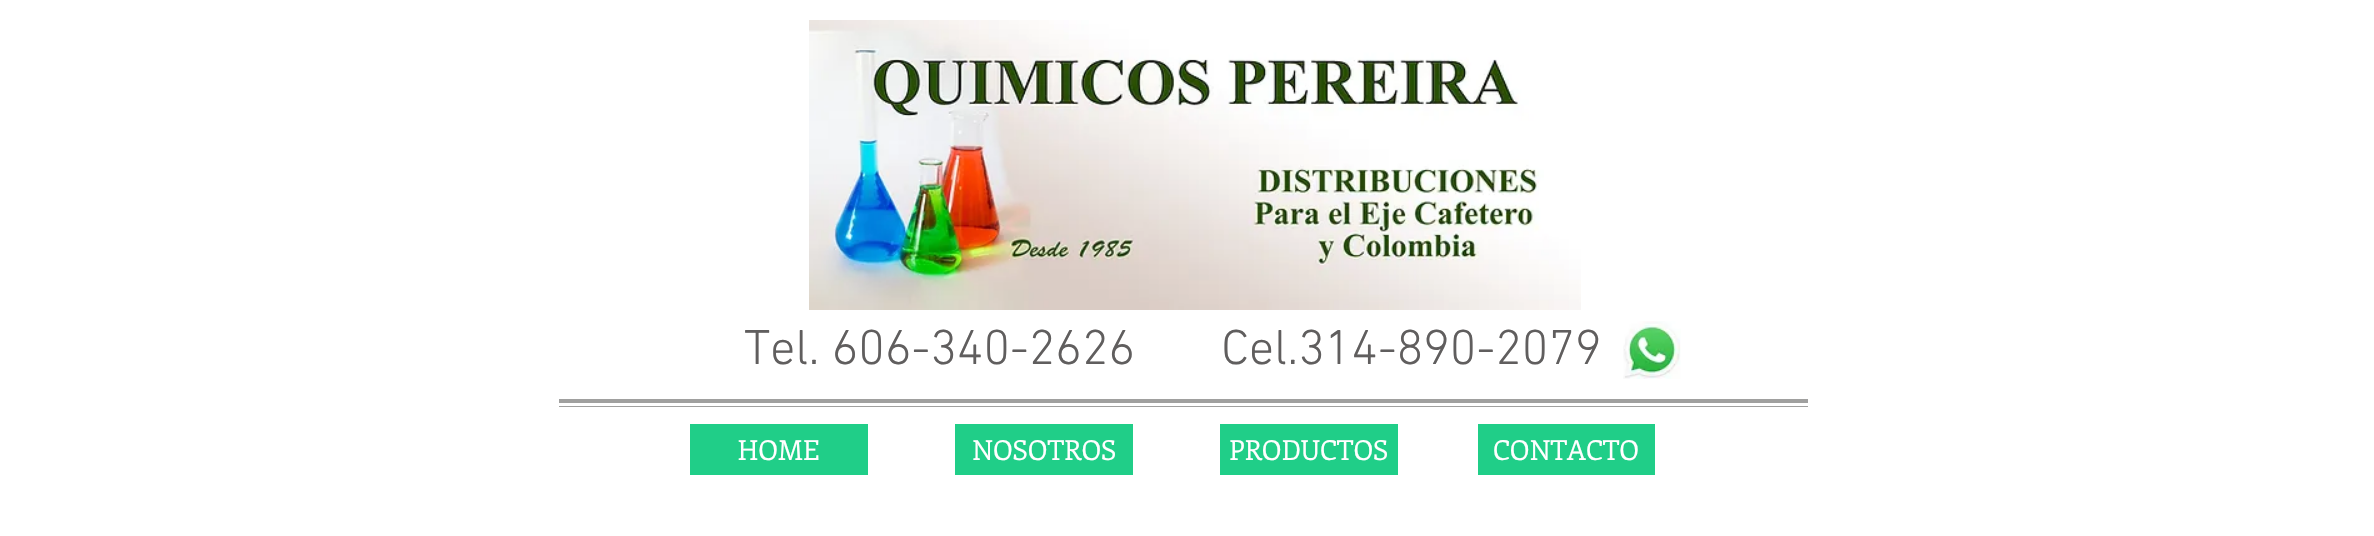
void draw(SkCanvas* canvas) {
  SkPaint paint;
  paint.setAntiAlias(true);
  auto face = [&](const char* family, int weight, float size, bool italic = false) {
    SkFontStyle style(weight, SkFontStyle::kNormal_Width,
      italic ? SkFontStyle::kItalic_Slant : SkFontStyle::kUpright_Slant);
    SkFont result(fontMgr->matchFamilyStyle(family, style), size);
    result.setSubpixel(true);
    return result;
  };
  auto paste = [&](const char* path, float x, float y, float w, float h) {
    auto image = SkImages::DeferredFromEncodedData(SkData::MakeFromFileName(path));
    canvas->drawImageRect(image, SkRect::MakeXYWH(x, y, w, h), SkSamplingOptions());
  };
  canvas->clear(0xffffffff);
  paste("img/1.png", 809, 20, 772, 290);
  paste("img/2.png", 1623, 321, 58, 58);
  {
    const struct { float x, y, w, h; SkColor color; } items[] = {
      {559, 399, 1249, 4, 0xffa0a09f},
      {559, 406, 1249, 1, 0xffa0a09f},
      {690, 424, 178, 51, 0xff20ce88},
      {955, 424, 178, 51, 0xff20ce88},
      {1220, 424, 178, 51, 0xff20ce88},
      {1478, 424, 177, 51, 0xff20ce88},
    };
    for (auto [x, y, w, h, color] : items) {
      paint.setColor(color);
      canvas->drawRect(SkRect::MakeXYWH(x, y, w, h), paint);
    }
  }
  auto f0 = face("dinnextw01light", 300, 50);
  paint.setColor(0xff605e5e);
  canvas->drawString("Tel. 606-340-2626       Cel.314-890-2079", 744, 364, f0, paint);
  auto f1 = face("Enriqueta", 400, 27.5f);
  paint.setColor(0xffffffff);
  {
    const struct { const char* s; float x, y; } items[] = {
      {"HOME", 738, 460},
      {"NOSOTROS", 972, 460},
      {"PRODUCTOS", 1229, 460},
      {"CONTACTO", 1493, 460},
    };
    for (auto [s, x, y] : items) {
      canvas->drawString(s, x, y, f1, paint);
    }
  }
}
